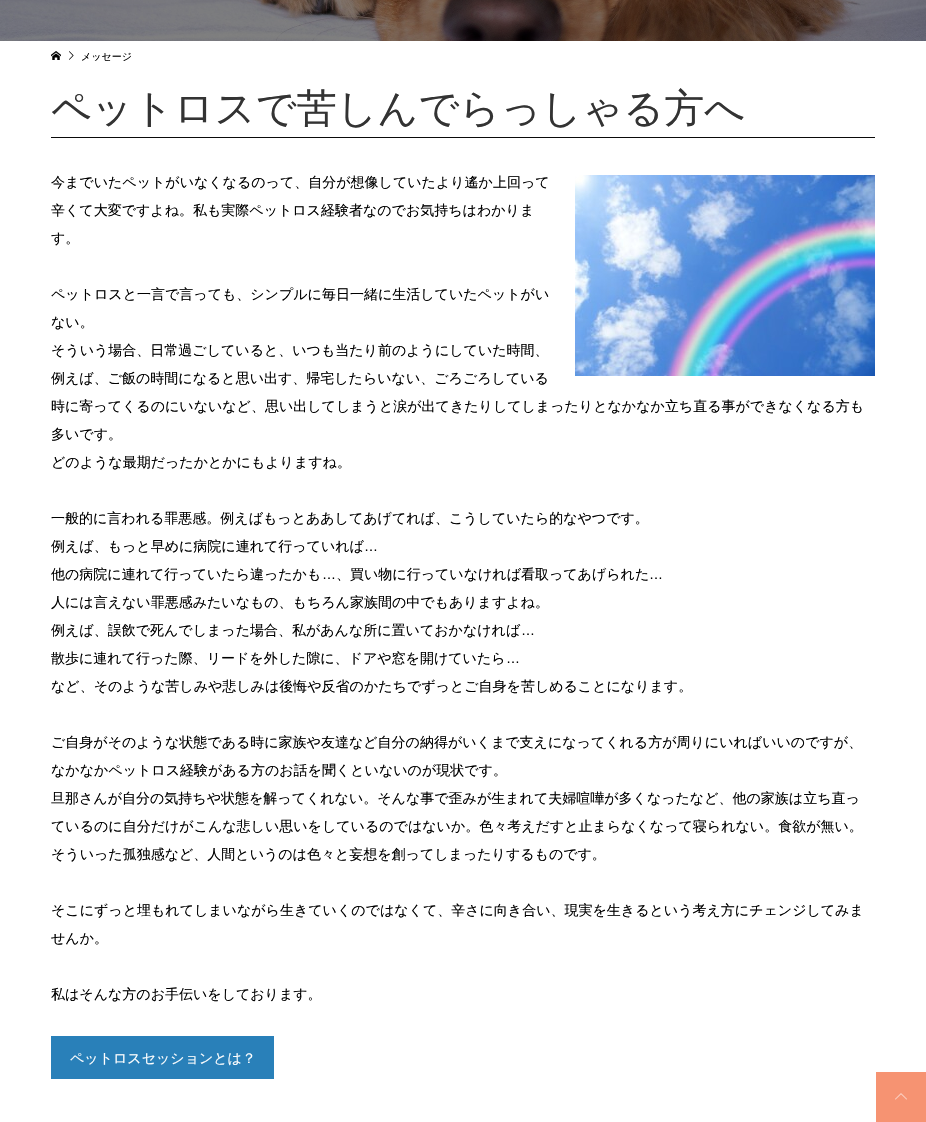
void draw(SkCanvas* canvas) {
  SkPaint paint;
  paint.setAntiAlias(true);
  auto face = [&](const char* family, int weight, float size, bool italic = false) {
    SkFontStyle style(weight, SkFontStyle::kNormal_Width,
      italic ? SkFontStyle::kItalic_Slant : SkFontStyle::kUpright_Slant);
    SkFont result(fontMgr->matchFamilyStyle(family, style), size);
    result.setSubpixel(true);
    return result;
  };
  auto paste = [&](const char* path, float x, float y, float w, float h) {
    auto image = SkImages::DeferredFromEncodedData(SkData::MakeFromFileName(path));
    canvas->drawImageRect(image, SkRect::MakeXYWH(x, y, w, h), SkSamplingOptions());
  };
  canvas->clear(0xffffffff);
  paste("img/1.png", 0, 0, 926, 41);
  paste("img/2.png", 51, 51, 10, 9);
  paste("img/3.png", 69, 51, 5, 9);
  paint.setColor(0xff0a0a0a);
  canvas->drawRect(SkRect::MakeXYWH(51, 137, 824, 1), paint);
  paste("img/4.png", 575, 175, 300, 201);
  paint.setColor(0xff2980b9);
  canvas->drawRect(SkRect::MakeXYWH(51, 1036, 223, 43), paint);
  paint.setColor(0xfff69372);
  canvas->drawRect(SkRect::MakeXYWH(876, 1072, 50, 50), paint);
  paste("img/5.png", 895, 1093, 12, 7);
  auto f0 = face("WenQuanYi Zen Hei", 500, 10);
  paint.setColor(0xff000000);
  canvas->drawString("メッセージ", 81, 60, f0, paint);
  auto f1 = face("WenQuanYi Zen Hei", 500, 40);
  paint.setColor(0xff333333);
  canvas->drawString("ペットロスで苦しんでらっしゃる方へ", 51, 122, f1, paint);
  auto f2 = face("WenQuanYi Zen Hei", 500, 14);
  paint.setColor(0xff000000);
  {
    const struct { const char* s; float x, y; } items[] = {
      {"今までいたペットがいなくなるのって、自分が想像していたより遙か上回って", 51, 187},
      {"辛くて大変ですよね。私も実際ペットロス経験者なのでお気持ちはわかりま", 51, 215},
      {"す。", 51, 243},
      {"ペットロスと一言で言っても、シンプルに毎日一緒に生活していたペットがい", 51, 299},
      {"ない。", 51, 327},
      {"そういう場合、日常過ごしていると、いつも当たり前のようにしていた時間、", 51, 355},
      {"例えば、ご飯の時間になると思い出す、帰宅したらいない、ごろごろしている", 51, 383},
      {"時に寄ってくるのにいないなど、思い出してしまうと涙が出てきたりしてしまったりとなかなか立ち直る事ができなくなる方も", 51, 411},
      {"多いです。", 51, 439},
      {"どのような最期だったかとかにもよりますね。", 51, 467},
      {"一般的に言われる罪悪感。例えばもっとああしてあげてれば、こうしていたら的なやつです。", 51, 523},
      {"例えば、もっと早めに病院に連れて行っていれば", 51, 551},
    };
    for (auto [s, x, y] : items) {
      canvas->drawString(s, x, y, f2, paint);
    }
  }
  auto f3 = face("Liberation Sans", 400, 14);
  canvas->drawString("…", 364, 551, f3, paint);
  canvas->drawString("他の病院に連れて行っていたら違ったかも", 51, 579, f2, paint);
  canvas->drawString("…", 322, 579, f3, paint);
  canvas->drawString("、買い物に行っていなければ看取ってあげられた", 336, 579, f2, paint);
  canvas->drawString("…", 649, 579, f3, paint);
  canvas->drawString("人には言えない罪悪感みたいなもの、もちろん家族間の中でもありますよね。", 51, 607, f2, paint);
  canvas->drawString("例えば、誤飲で死んでしまった場合、私があんな所に置いておかなければ", 51, 635, f2, paint);
  canvas->drawString("…", 521, 635, f3, paint);
  canvas->drawString("散歩に連れて行った際、リードを外した隙に、ドアや窓を開けていたら", 51, 663, f2, paint);
  canvas->drawString("…", 506, 663, f3, paint);
  {
    const struct { const char* s; float x, y; } items[] = {
      {"など、そのような苦しみや悲しみは後悔や反省のかたちでずっとご自身を苦しめることになります。", 51, 691},
      {"ご自身がそのような状態である時に家族や友達など自分の納得がいくまで支えになってくれる方が周りにいればいいのですが、", 51, 747},
      {"なかなかペットロス経験がある方のお話を聞くといないのが現状です。", 51, 775},
      {"旦那さんが自分の気持ちや状態を解ってくれない。そんな事で歪みが生まれて夫婦喧嘩が多くなったなど、他の家族は立ち直っ", 51, 803},
      {"ているのに自分だけがこんな悲しい思いをしているのではないか。色々考えだすと止まらなくなって寝られない。食欲が無い。", 51, 831},
      {"そういった孤独感など、人間というのは色々と妄想を創ってしまったりするものです。", 51, 859},
      {"そこにずっと埋もれてしまいながら生きていくのではなくて、辛さに向き合い、現実を生きるという考え方にチェンジしてみま", 51, 915},
      {"せんか。", 51, 943},
      {"私はそんな方のお手伝いをしております。", 51, 999},
    };
    for (auto [s, x, y] : items) {
      canvas->drawString(s, x, y, f2, paint);
    }
  }
  paint.setColor(0xffffffff);
  canvas->drawString("ペットロスセッションとは？", 70, 1063, f2, paint);
}
